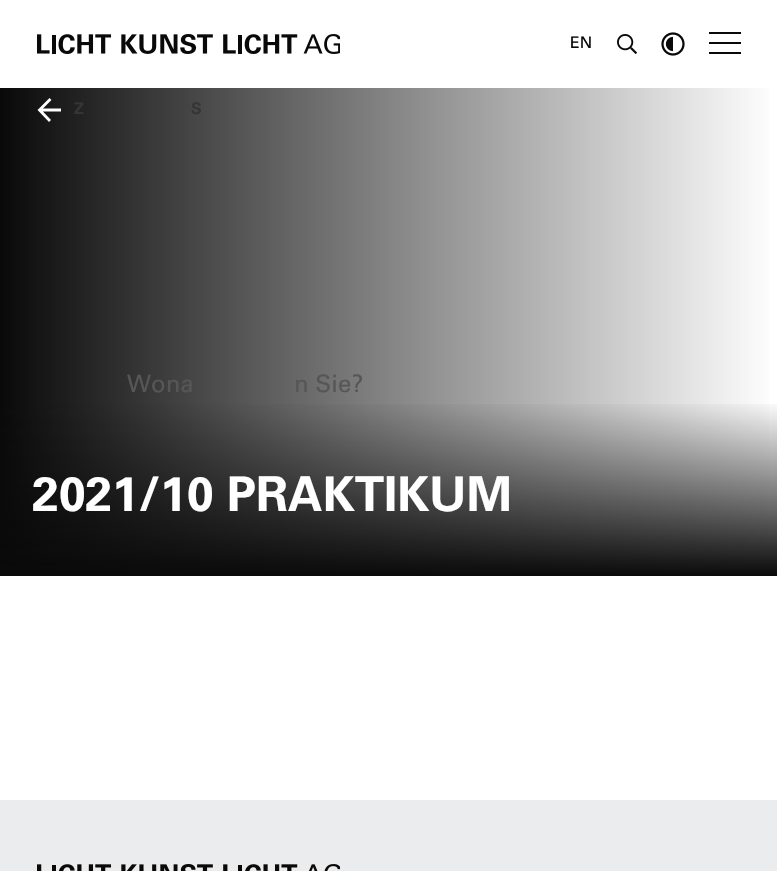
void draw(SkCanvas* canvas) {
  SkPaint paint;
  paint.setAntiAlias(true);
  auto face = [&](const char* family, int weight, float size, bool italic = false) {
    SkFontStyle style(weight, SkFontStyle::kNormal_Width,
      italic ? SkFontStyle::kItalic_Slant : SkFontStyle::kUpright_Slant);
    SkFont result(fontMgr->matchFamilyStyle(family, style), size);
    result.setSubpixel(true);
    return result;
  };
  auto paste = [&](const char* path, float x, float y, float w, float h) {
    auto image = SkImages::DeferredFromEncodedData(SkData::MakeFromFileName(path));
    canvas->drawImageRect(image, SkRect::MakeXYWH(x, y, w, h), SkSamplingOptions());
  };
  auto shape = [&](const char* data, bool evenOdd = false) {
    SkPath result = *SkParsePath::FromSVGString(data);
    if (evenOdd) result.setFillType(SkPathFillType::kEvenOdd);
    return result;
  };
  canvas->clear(0xffffffff);
  paste("img/1.png", 37, 34, 303, 20);
  paste("img/2.png", 617, 34, 20, 20);
  paste("img/3.png", 661, 32, 24, 24);
  {
    const struct { float x, y, w, h; SkColor color; } items[] = {
      {709, 32, 32, 2, 0xff0a0909},
      {709, 42, 32, 2, 0xff0a0909},
      {709, 52, 32, 2, 0xff0a0909},
    };
    for (auto [x, y, w, h, color] : items) {
      paint.setColor(color);
      canvas->drawRect(SkRect::MakeXYWH(x, y, w, h), paint);
    }
  }
  {
    const SkColor colors[] = {0xff0a0909, 0xffffffff};
    const float stops[] = {0, 1};
    const SkPoint ends[] = {{0, 288}, {777, 288}};
    paint.setShader(SkGradientShader::MakeLinear(ends, colors, stops, 2, SkTileMode::kClamp));
    paint.setAlpha(255);
  }
  canvas->drawRect(SkRect::MakeXYWH(0, 88, 769, 487), paint);
  paint.setStroke(true);
  paint.setStrokeWidth(2.8f);
  paint.setShader(nullptr);
  paint.setColor(0xffffffff);
  canvas->drawPath(shape("M50.5 99L39.5 110L50 121M61 110H39.5"), paint);
  paint.setStroke(false);
  {
    const SkColor colors[] = {0xff0a0909, 0x000a0909};
    const float stops[] = {0, 1};
    const SkPoint ends[] = {{389, 576}, {389, 400}};
    paint.setShader(SkGradientShader::MakeLinear(ends, colors, stops, 2, SkTileMode::kClamp));
    paint.setAlpha(255);
  }
  canvas->drawRect(SkRect::MakeXYWH(0, 404, 777, 172), paint);
  paint.setShader(nullptr);
  paint.setColor(0xffebeced);
  canvas->drawRect(SkRect::MakeXYWH(0, 800, 777, 71), paint);
  paste("img/4.png", 37, 864, 303, 7);
  auto f0 = face("Univers", 400, 16);
  paint.setColor(0xff0a0909);
  canvas->drawString("EN", 570, 48, f0, paint);
  auto f1 = face("Univers", 700, 16);
  paint.setColor(0xff363535);
  canvas->drawString("Z", 74, 114, f1, paint);
  canvas->drawString("S", 191, 114, f1, paint);
  auto f2 = face("Univers", 700, 48);
  paint.setColor(0xffffffff);
  canvas->drawString("2021/10 PRAKTIKUM", 32, 511, f2, paint);
  auto f3 = face("Univers", 400, 24);
  paint.setColor(0xff575656);
  canvas->drawString("Wona", 127, 392, f3, paint);
  canvas->drawString("n Sie?", 294, 392, f3, paint);
}
